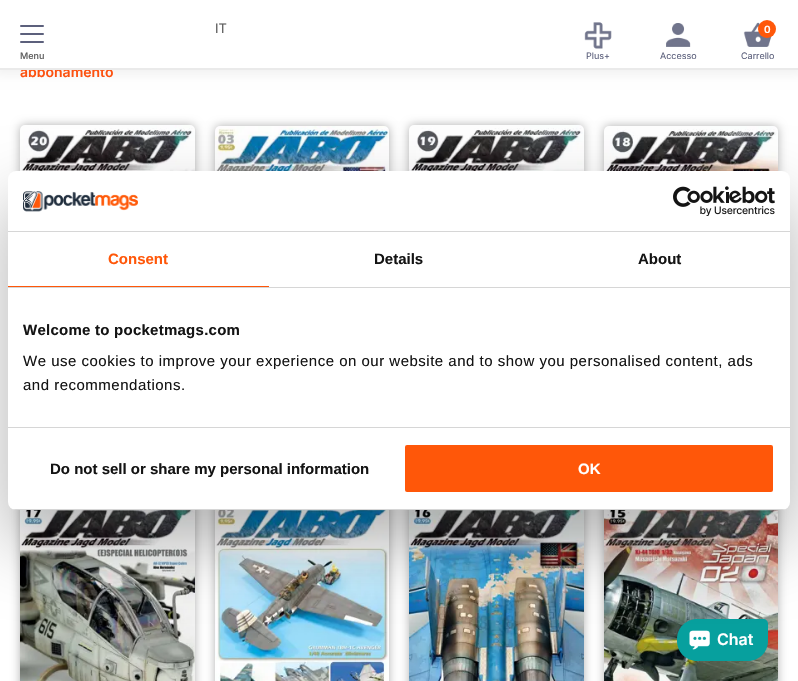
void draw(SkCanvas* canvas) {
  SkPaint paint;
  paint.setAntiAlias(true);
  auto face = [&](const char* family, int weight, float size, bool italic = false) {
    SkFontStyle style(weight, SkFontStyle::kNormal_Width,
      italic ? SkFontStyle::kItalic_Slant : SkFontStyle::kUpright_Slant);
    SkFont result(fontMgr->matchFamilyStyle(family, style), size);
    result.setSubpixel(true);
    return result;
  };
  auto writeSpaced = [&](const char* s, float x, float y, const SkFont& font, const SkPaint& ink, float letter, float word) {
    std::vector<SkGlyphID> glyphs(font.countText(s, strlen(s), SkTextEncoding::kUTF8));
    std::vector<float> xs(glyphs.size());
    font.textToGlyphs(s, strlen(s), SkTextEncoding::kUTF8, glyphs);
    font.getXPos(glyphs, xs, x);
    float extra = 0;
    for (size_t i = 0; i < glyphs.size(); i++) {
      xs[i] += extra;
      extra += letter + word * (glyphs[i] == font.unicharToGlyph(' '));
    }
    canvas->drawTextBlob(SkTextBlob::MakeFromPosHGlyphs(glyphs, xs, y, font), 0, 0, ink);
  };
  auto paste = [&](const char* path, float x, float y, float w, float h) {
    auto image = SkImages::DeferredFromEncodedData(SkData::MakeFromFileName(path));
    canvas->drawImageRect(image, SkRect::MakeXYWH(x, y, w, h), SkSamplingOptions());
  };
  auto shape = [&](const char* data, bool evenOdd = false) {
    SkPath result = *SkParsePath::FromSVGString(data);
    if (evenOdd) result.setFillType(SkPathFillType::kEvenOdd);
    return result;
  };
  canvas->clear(0xffffffff);
  paint.setColor(0x0d000000);
  paint.setMaskFilter(SkMaskFilter::MakeBlur(kNormal_SkBlurStyle, 5));
  canvas->drawRect(SkRect::MakeXYWH(-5, -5, 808, 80), paint);
  paint.setMaskFilter(nullptr);
  paint.setColor(0x4d000000);
  paint.setMaskFilter(SkMaskFilter::MakeBlur(kNormal_SkBlurStyle, 5));
  canvas->drawRoundRect(SkRect::MakeXYWH(20, 125, 175, 247), 5, 5, paint);
  paint.setMaskFilter(nullptr);
  paste("img/4.png", 20, 125, 175, 46);
  paint.setMaskFilter(SkMaskFilter::MakeBlur(kNormal_SkBlurStyle, 5));
  canvas->drawRoundRect(SkRect::MakeXYWH(215, 126, 174, 246), 5, 5, paint);
  paint.setMaskFilter(nullptr);
  paste("img/5.png", 215, 126, 174, 45);
  paint.setMaskFilter(SkMaskFilter::MakeBlur(kNormal_SkBlurStyle, 5));
  canvas->drawRoundRect(SkRect::MakeXYWH(409, 125, 175, 247), 5, 5, paint);
  paint.setMaskFilter(nullptr);
  paste("img/6.png", 409, 125, 175, 46);
  paint.setMaskFilter(SkMaskFilter::MakeBlur(kNormal_SkBlurStyle, 5));
  canvas->drawRoundRect(SkRect::MakeXYWH(604, 126, 174, 246), 5, 5, paint);
  paint.setMaskFilter(nullptr);
  paste("img/7.png", 604, 126, 174, 45);
  paint.setMaskFilter(SkMaskFilter::MakeBlur(kNormal_SkBlurStyle, 5));
  canvas->drawRoundRect(SkRect::MakeXYWH(20, 500, 175, 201), 5, 5, paint);
  paint.setMaskFilter(nullptr);
  paste("img/8.png", 20, 510, 175, 171);
  paint.setMaskFilter(SkMaskFilter::MakeBlur(kNormal_SkBlurStyle, 5));
  canvas->drawRoundRect(SkRect::MakeXYWH(215, 500, 174, 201), 5, 5, paint);
  paint.setMaskFilter(nullptr);
  paste("img/9.png", 215, 510, 174, 171);
  paint.setMaskFilter(SkMaskFilter::MakeBlur(kNormal_SkBlurStyle, 5));
  canvas->drawRoundRect(SkRect::MakeXYWH(409, 500, 175, 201), 5, 5, paint);
  paint.setMaskFilter(nullptr);
  paste("img/10.png", 409, 510, 175, 171);
  paint.setMaskFilter(SkMaskFilter::MakeBlur(kNormal_SkBlurStyle, 5));
  canvas->drawRoundRect(SkRect::MakeXYWH(604, 500, 174, 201), 5, 5, paint);
  paint.setMaskFilter(nullptr);
  paste("img/11.png", 604, 510, 174, 171);
  paint.setColor(0xff07a09e);
  canvas->drawPath(shape("M697 619H763C766 619 768 621 768 624V641C768 652 759 661 748 661H697C686 661 677 652 677 641V639C677 628 686 619 697 619Z"), paint);
  paste("img/12.png", 689, 630, 21, 20);
  paint.setColor(0x4d000000);
  paint.setMaskFilter(SkMaskFilter::MakeBlur(kNormal_SkBlurStyle, 34));
  canvas->drawRoundRect(SkRect::MakeXYWH(8, 203, 782, 339), 8, 8, paint);
  paint.setMaskFilter(nullptr);
  paint.setColor(0xffffffff);
  canvas->drawRoundRect(SkRect::MakeXYWH(8, 171, 782, 339), 8, 8, paint);
  paint.setColor(0xffd6d6d6);
  canvas->drawRect(SkRect::MakeXYWH(8, 231, 782, 1), paint);
  paste("img/13.png", 23, 191, 115, 21);
  paste("img/14.png", 673, 186, 102, 30);
  {
    const struct { float x, y, w, h; SkColor color; } items[] = {
      {8, 287, 782, 1, 0xffd6d6d6},
      {8, 286, 261, 1, 0xffff5709},
      {8, 427, 782, 1, 0xffd6d6d6},
    };
    for (auto [x, y, w, h, color] : items) {
      paint.setColor(color);
      canvas->drawRect(SkRect::MakeXYWH(x, y, w, h), paint);
    }
  }
  canvas->save();
  canvas->clipPath(shape("M16 171H782C786.5 171 790 174.5 790 179V502C790 506.5 786.5 510 782 510H16C11.5 510 8 506.5 8 502V179C8 174.5 11.5 171 16 171Z"), true);
  canvas->drawRect(SkRect::MakeXYWH(8, 509, 782, 1), paint);
  canvas->restore();
  paint.setColor(0xffff5709);
  canvas->drawRoundRect(SkRect::MakeXYWH(404, 444, 370, 49), 3, 3, paint);
  paint.setStroke(true);
  paint.setStrokeWidth(2);
  paint.setColor(0xffffffff);
  canvas->drawRoundRect(SkRect::MakeXYWH(404, 444, 370, 49), 3, 3, paint);
  auto f0 = face("Inter", 600, 14);
  paint.setStroke(false);
  paint.setColor(0xfffd510f);
  canvas->drawString("abbonamento", 20, 77, f0, paint);
  paint.setColor(0xffffffff);
  canvas->drawRect(SkRect::MakeXYWH(0, 0, 798, 68), paint);
  paint.setColor(0xff5c607c);
  canvas->drawRoundRect(SkRect::MakeXYWH(20, 41, 24, 2), 1, 1, paint);
  canvas->drawRoundRect(SkRect::MakeXYWH(20, 33, 24, 2), 1, 1, paint);
  canvas->drawRoundRect(SkRect::MakeXYWH(20, 25, 24, 2), 1, 1, paint);
  auto f1 = face("Inter", 500, 9);
  paint.setColor(0xff5c5c5c);
  canvas->drawString("Menu", 20, 59, f1, paint);
  paste("img/3.png", 743, 22, 29, 25);
  paint.setColor(0xffff580a);
  canvas->drawCircle(767, 29, 9, paint);
  auto f2 = face("Inter", 600, 10);
  paint.setColor(0xffffffff);
  canvas->drawString("0", 764, 33, f2, paint);
  paste("img/1.png", 584, 22, 28, 27);
  paste("img/2.png", 666, 23, 25, 24);
  auto f3 = face("Inter", 400, 9);
  paint.setColor(0xff5c607c);
  canvas->drawString("Plus+", 586, 59, f3, paint);
  canvas->drawString("Accesso", 660, 59, f3, paint);
  auto f4 = face("Inter", 400, 13);
  paint.setColor(0xff5c5c5c);
  canvas->drawString("IT", 215, 33, f4, paint);
  paint.setColor(0xff5c607c);
  canvas->drawString("Carrello", 741, 59, f3, paint);
  paint.setColor(0xffeaeaea);
  canvas->drawRect(SkRect::MakeXYWH(0, 68, 798, 2), paint);
  auto f5 = face("Inter", 600, 16);
  paint.setColor(0xffffffff);
  canvas->drawString("Chat", 717, 645, f5, paint);
  auto f6 = face("Liberation Sans", 700, 15);
  paint.setColor(0xffff5709);
  canvas->drawString("Consent", 108, 264, f6, paint);
  paint.setColor(0xff141414);
  canvas->drawString("Details", 374, 264, f6, paint);
  canvas->drawString("About", 638, 264, f6, paint);
  writeSpaced("Welcome to pocketmags.com", 23, 335, f6, paint, 0.25f, 0);
  auto f7 = face("Liberation Sans", 400, 15);
  writeSpaced("We use cookies to improve your experience on our website and to show you personalised content, ads", 23, 366, f7, paint, 0.5f, 0);
  writeSpaced("and recommendations.", 23, 390, f7, paint, 0.5f, 0);
  canvas->drawString("Do not sell or share my personal information", 50, 474, f6, paint);
  paint.setColor(0xffffffff);
  canvas->drawString("OK", 578, 474, f6, paint);
}
